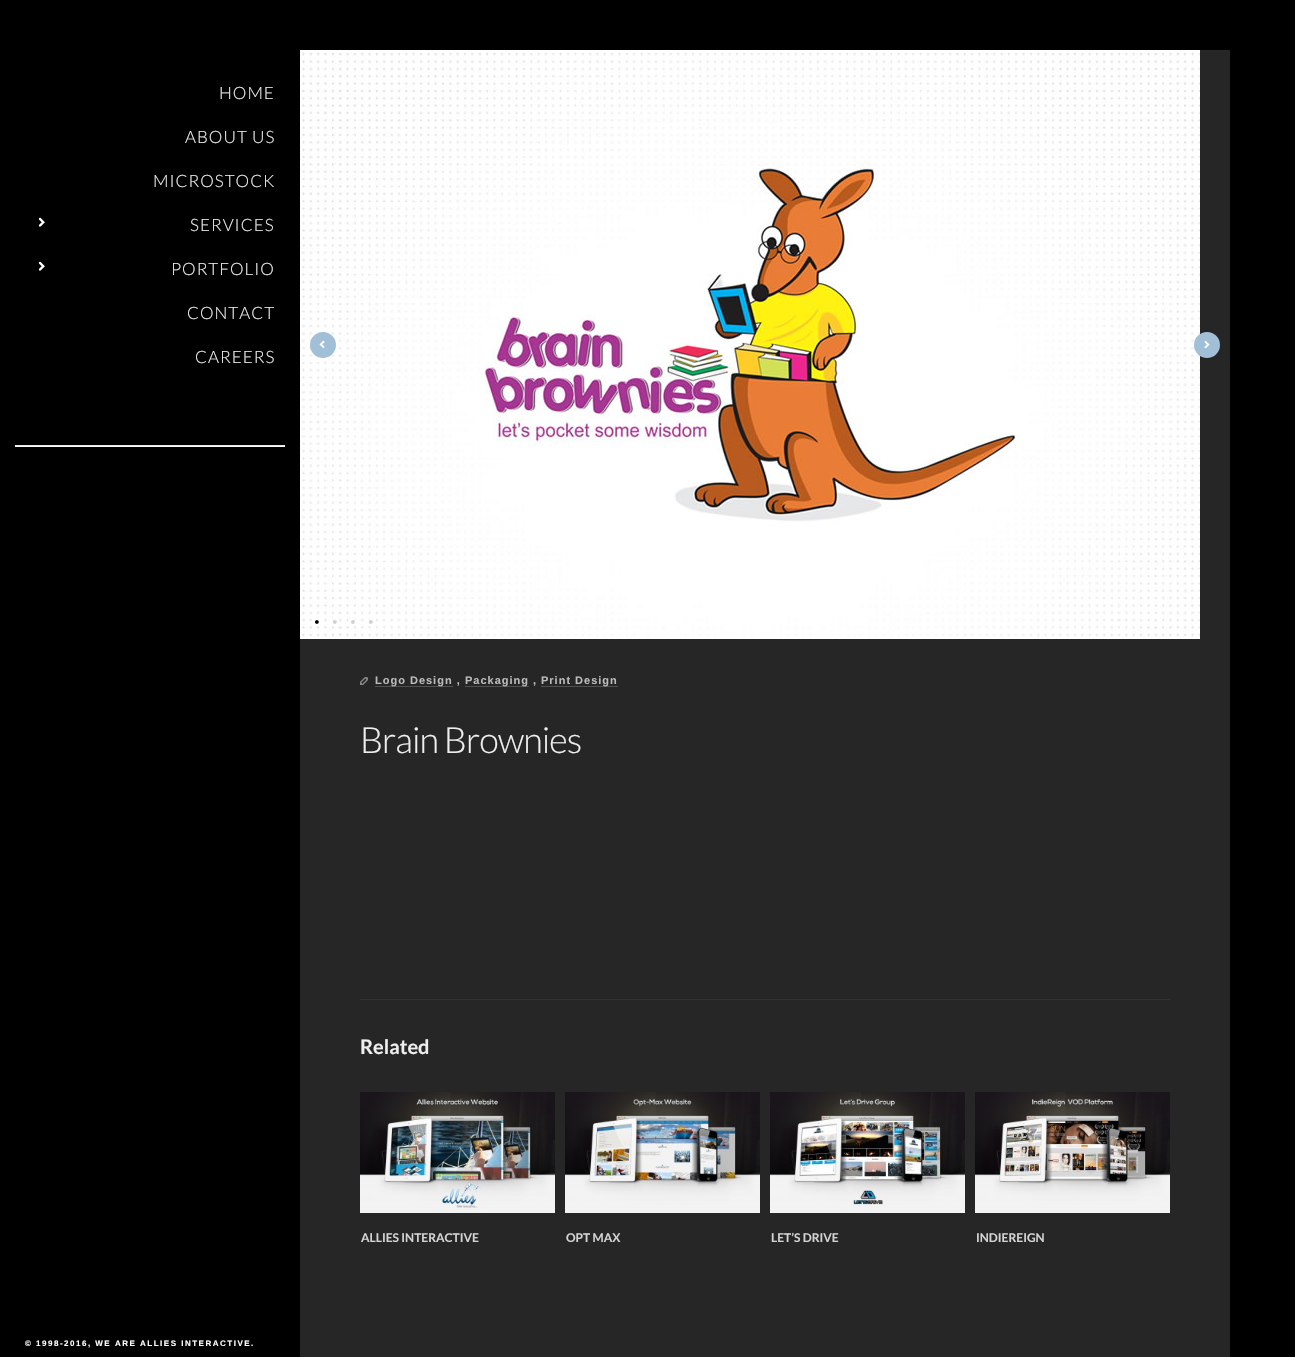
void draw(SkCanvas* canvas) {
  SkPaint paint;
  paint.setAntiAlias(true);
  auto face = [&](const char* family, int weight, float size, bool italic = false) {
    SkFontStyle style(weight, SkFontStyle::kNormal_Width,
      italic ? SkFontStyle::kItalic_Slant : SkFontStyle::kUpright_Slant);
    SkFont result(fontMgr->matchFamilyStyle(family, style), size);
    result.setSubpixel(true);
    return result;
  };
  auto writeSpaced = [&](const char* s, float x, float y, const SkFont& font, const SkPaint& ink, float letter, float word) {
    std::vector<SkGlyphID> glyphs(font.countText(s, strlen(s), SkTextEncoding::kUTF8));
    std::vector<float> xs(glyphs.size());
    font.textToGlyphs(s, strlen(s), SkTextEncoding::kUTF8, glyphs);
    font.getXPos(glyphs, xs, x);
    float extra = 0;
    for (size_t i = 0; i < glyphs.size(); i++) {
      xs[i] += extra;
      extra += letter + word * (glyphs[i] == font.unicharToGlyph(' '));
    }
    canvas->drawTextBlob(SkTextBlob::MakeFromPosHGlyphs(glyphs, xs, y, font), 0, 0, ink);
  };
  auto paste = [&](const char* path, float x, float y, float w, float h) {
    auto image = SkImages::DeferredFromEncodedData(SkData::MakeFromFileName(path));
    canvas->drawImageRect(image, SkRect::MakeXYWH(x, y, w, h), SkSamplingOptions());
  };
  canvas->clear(0xff000000);
  paste("img/1.png", 38, 217, 7, 10);
  paste("img/1.png", 38, 261, 7, 10);
  paste("img/2.png", 15, 445, 270, 2);
  paint.setColor(0xff262626);
  canvas->drawRect(SkRect::MakeXYWH(300, 50, 930, 1307), paint);
  paste("img/3.png", 300, 50, 900, 589);
  paint.setColor(0xffa2bfd8);
  canvas->drawCircle(323, 345, 13, paint);
  paste("img/4.png", 319, 340, 6, 8);
  canvas->drawCircle(1207, 345, 13, paint);
  paste("img/5.png", 1204, 341, 6, 8);
  paste("img/6.png", 315, 619, 5, 5);
  paste("img/7.png", 332, 619, 5, 5);
  paste("img/8.png", 351, 619, 5, 5);
  paste("img/9.png", 368, 619, 5, 5);
  paste("img/10.png", 360, 677, 8, 8);
  {
    const struct { float x, y, w, h; SkColor color; } items[] = {
      {375, 686, 78, 1, 0xff515151},
      {465, 686, 64, 1, 0xff515151},
      {541, 686, 77, 1, 0xff515151},
      {360, 999, 810, 1, 0xff333232},
    };
    for (auto [x, y, w, h, color] : items) {
      paint.setColor(color);
      canvas->drawRect(SkRect::MakeXYWH(x, y, w, h), paint);
    }
  }
  paste("img/11.png", 360, 1092, 195, 121);
  paste("img/12.png", 565, 1092, 195, 121);
  paste("img/13.png", 770, 1092, 195, 121);
  paste("img/14.png", 975, 1092, 195, 121);
  auto f0 = face("Lato", 300, 17);
  paint.setColor(0xffeeeeee);
  {
    const struct { const char* s; float x, y; } items[] = {
      {"HOME", 219, 99},
      {"ABOUT US", 185, 143},
      {"MICROSTOCK", 153, 187},
      {"SERVICES", 190, 231},
      {"PORTFOLIO", 171, 275},
      {"CONTACT", 187, 319},
      {"CAREERS", 195, 363},
    };
    for (auto [s, x, y] : items) {
      writeSpaced(s, x, y, f0, paint, 1, 0);
    }
  }
  auto f1 = face("Liberation Sans", 700, 11);
  paint.setColor(0xffbbbbbb);
  {
    const struct { const char* s; float x, y; } items[] = {
      {"Logo Design ,", 375, 684},
      {"Packaging ,", 465, 684},
      {"Print Design", 541, 684},
    };
    for (auto [s, x, y] : items) {
      writeSpaced(s, x, y, f1, paint, 1, 0);
    }
  }
  auto f2 = face("Lato", 300, 36);
  paint.setColor(0xffeeeeee);
  writeSpaced("Brain Brownies", 360, 753, f2, paint, -1, 0);
  auto f3 = face("Lato", 700, 20);
  canvas->drawString("Related", 360, 1054, f3, paint);
  auto f4 = face("Lato", 700, 12);
  paint.setColor(0xffd3d3d3);
  {
    const struct { const char* s; float x, y; } items[] = {
      {"ALLIES INTERACTIVE", 361, 1242},
      {"OPT MAX", 566, 1242},
      {"LET’S DRIVE", 771, 1242},
      {"INDIEREIGN", 976, 1242},
    };
    for (auto [s, x, y] : items) {
      canvas->drawString(s, x, y, f4, paint);
    }
  }
  auto f5 = face("Liberation Sans", 700, 8);
  paint.setColor(0xffffffff);
  writeSpaced("© 1998-2016, WE ARE ALLIES INTERACTIVE.", 25, 1346, f5, paint, 1.5f, 0);
}
